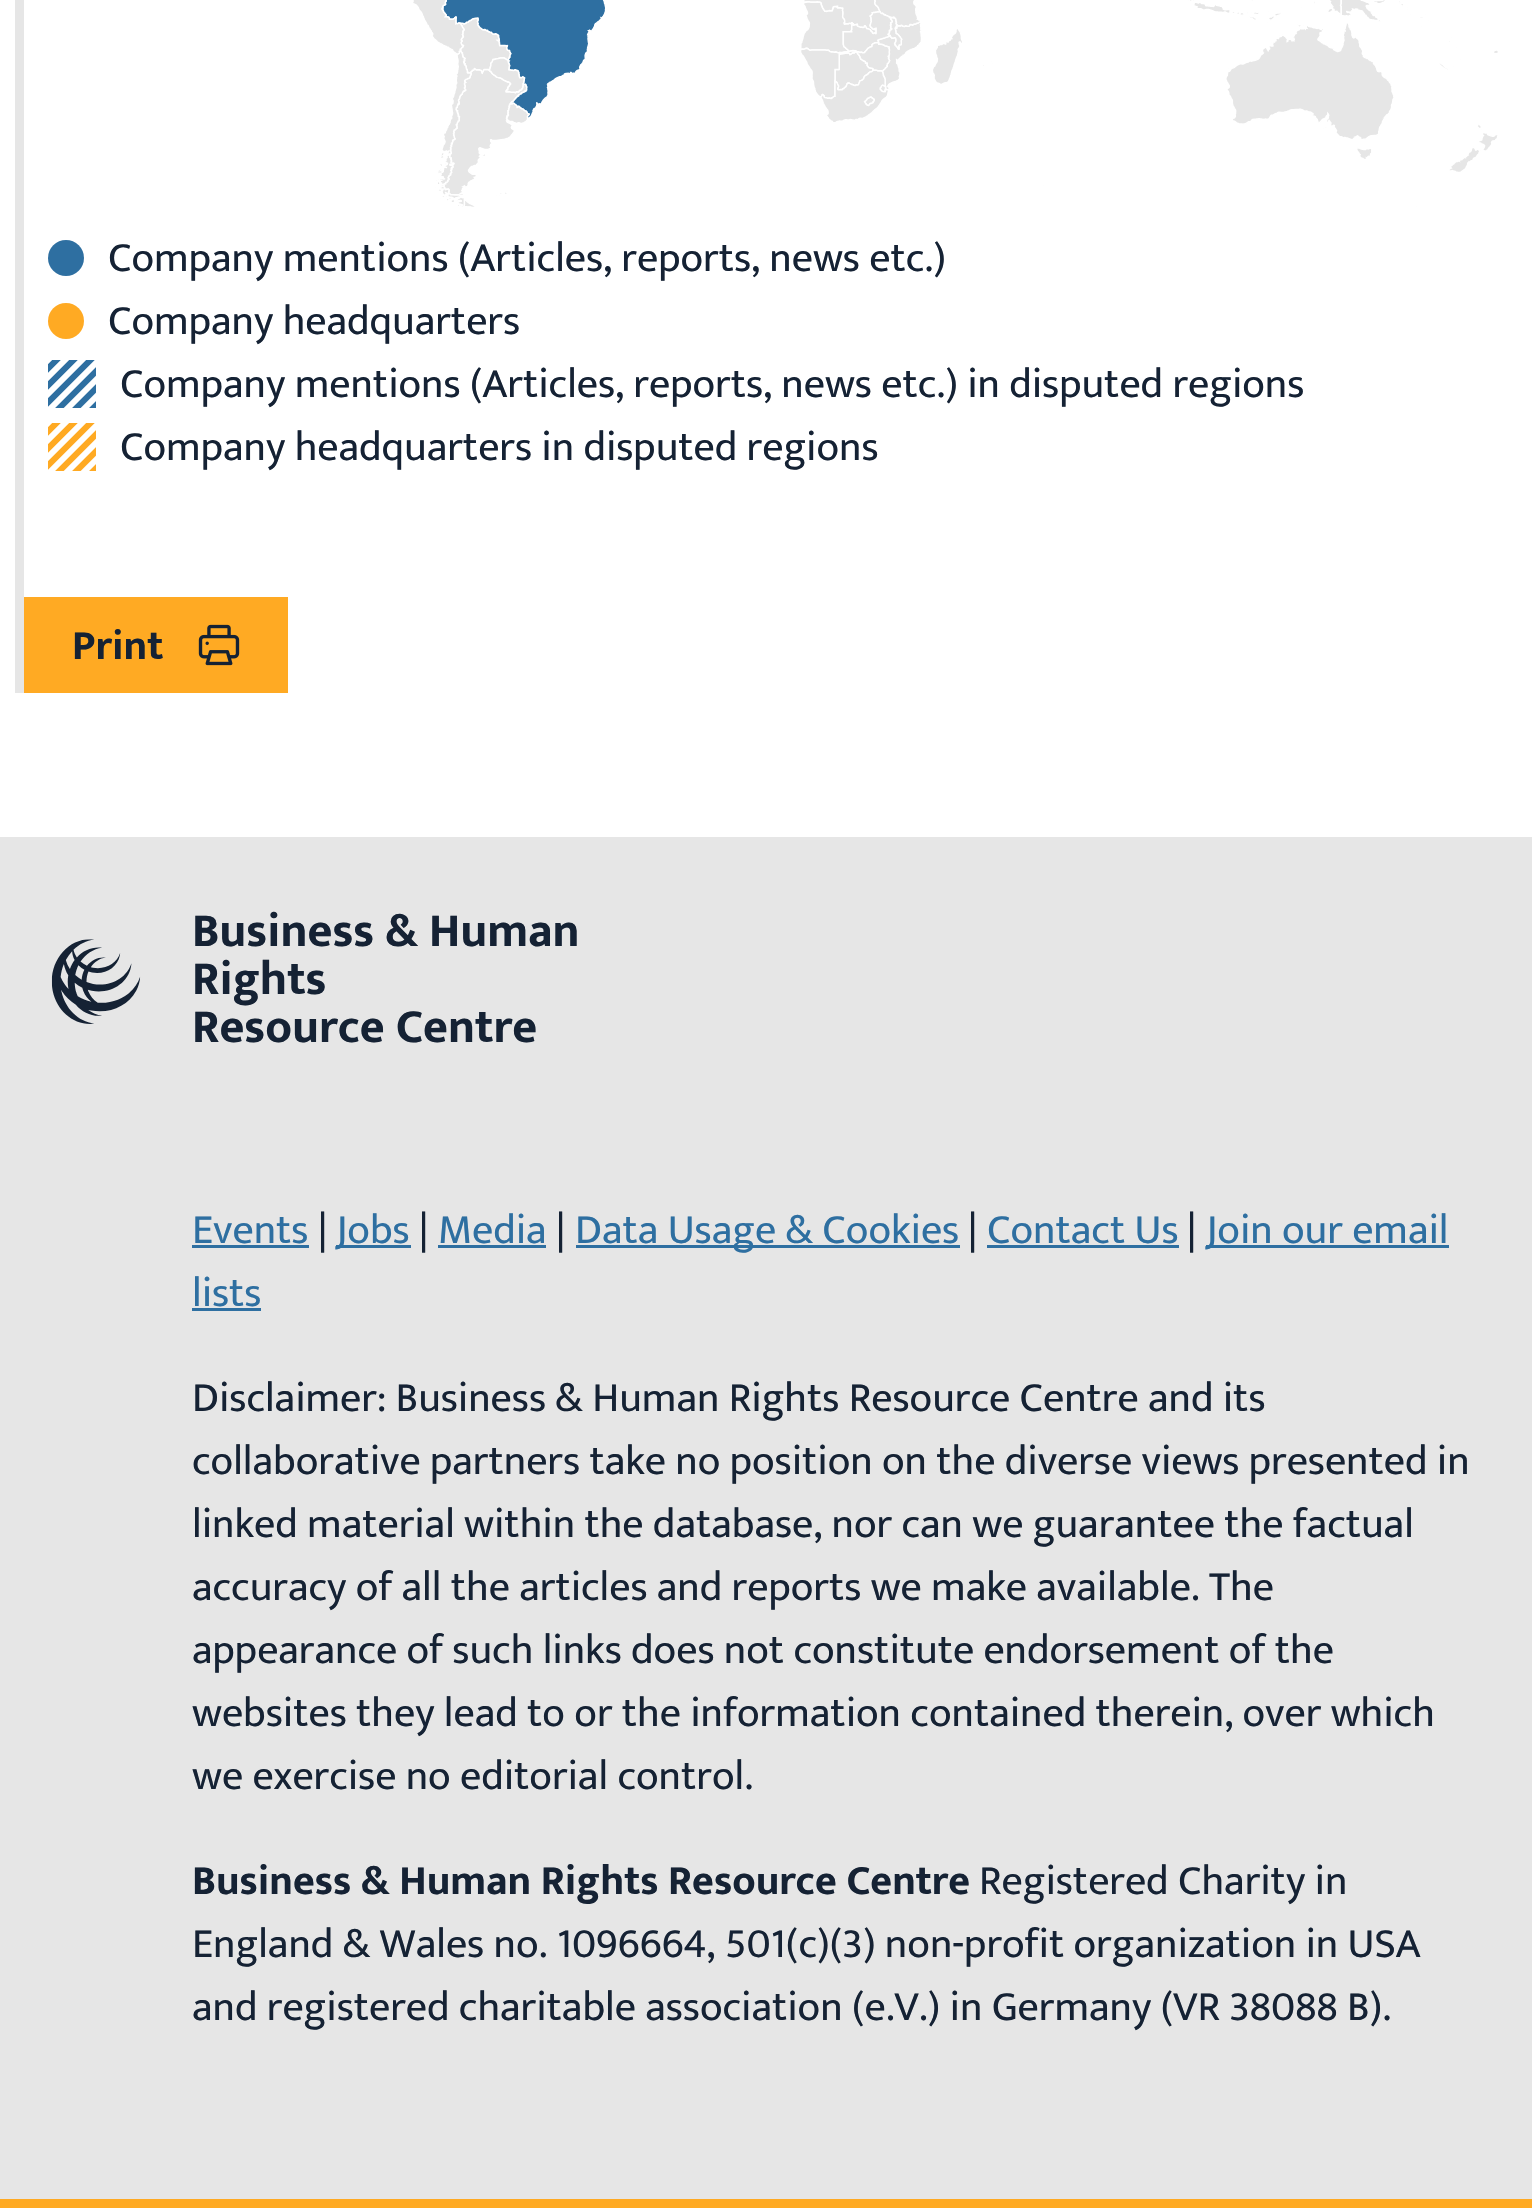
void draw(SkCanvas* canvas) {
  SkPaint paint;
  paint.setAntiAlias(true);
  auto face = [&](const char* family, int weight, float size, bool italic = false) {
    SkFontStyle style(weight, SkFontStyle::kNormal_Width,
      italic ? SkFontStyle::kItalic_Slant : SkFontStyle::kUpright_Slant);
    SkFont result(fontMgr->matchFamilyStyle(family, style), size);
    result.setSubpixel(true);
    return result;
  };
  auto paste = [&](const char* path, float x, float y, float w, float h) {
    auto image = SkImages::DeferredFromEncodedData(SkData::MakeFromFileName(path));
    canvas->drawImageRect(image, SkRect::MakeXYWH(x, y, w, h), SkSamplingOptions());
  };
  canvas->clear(0xffffffff);
  paint.setColor(0xffe6e6e6);
  canvas->drawRect(SkRect::MakeXYWH(15, 0, 9, 693), paint);
  paste("img/1.png", 413, 0, 1085, 207);
  paint.setColor(0xff2e6fa1);
  canvas->drawCircle(66, 258, 18, paint);
  paint.setColor(0xffffaa23);
  canvas->drawCircle(66, 321, 18, paint);
  paste("img/2.png", 48, 360, 48, 48);
  paste("img/3.png", 48, 423, 48, 48);
  canvas->drawRect(SkRect::MakeXYWH(24, 597, 264, 96), paint);
  paste("img/4.png", 198, 624, 42, 42);
  paint.setColor(0xffe6e6e6);
  canvas->drawRect(SkRect::MakeXYWH(0, 837, 1532, 1362), paint);
  paste("img/5.png", 51, 939, 90, 85);
  {
    const struct { float x, y, w, h; SkColor color; } items[] = {
      {192, 1245, 117, 3, 0xff2e6fa1},
      {336, 1245, 75, 3, 0xff2e6fa1},
      {438, 1245, 108, 3, 0xff2e6fa1},
      {576, 1245, 384, 3, 0xff2e6fa1},
      {987, 1245, 192, 3, 0xff2e6fa1},
      {1206, 1245, 243, 3, 0xff2e6fa1},
      {192, 1308, 69, 3, 0xff2e6fa1},
      {0, 2199, 1532, 9, 0xffffaa23},
    };
    for (auto [x, y, w, h, color] : items) {
      paint.setColor(color);
      canvas->drawRect(SkRect::MakeXYWH(x, y, w, h), paint);
    }
  }
  auto f0 = face("Mukta", 400, 42);
  paint.setColor(0xff152234);
  {
    const struct { const char* s; float x, y; } items[] = {
      {"Company mentions (Articles, reports, news etc.)", 108, 271},
      {"Company headquarters", 108, 334},
      {"Company mentions (Articles, reports, news etc.) in disputed regions", 120, 397},
      {"Company headquarters in disputed regions", 120, 460},
    };
    for (auto [s, x, y] : items) {
      canvas->drawString(s, x, y, f0, paint);
    }
  }
  auto f1 = face("Mukta", 700, 42);
  canvas->drawString("Print", 72, 659, f1, paint);
  auto f2 = face("Mukta", 700, 48);
  {
    const struct { const char* s; float x, y; } items[] = {
      {"Business & Human", 192, 946},
      {"Rights", 192, 994},
      {"Resource Centre", 192, 1042},
    };
    for (auto [s, x, y] : items) {
      canvas->drawString(s, x, y, f2, paint);
    }
  }
  paint.setColor(0xff2e6fa1);
  canvas->drawString("Events", 192, 1243, f0, paint);
  paint.setColor(0xff152234);
  canvas->drawString("|", 318, 1243, f0, paint);
  paint.setColor(0xff2e6fa1);
  canvas->drawString("Jobs", 336, 1243, f0, paint);
  paint.setColor(0xff152234);
  canvas->drawString("|", 419, 1243, f0, paint);
  paint.setColor(0xff2e6fa1);
  canvas->drawString("Media", 438, 1243, f0, paint);
  paint.setColor(0xff152234);
  canvas->drawString("|", 556, 1243, f0, paint);
  paint.setColor(0xff2e6fa1);
  canvas->drawString("Data Usage & Cookies", 575, 1243, f0, paint);
  paint.setColor(0xff152234);
  canvas->drawString("|", 968, 1243, f0, paint);
  paint.setColor(0xff2e6fa1);
  canvas->drawString("Contact Us", 987, 1243, f0, paint);
  paint.setColor(0xff152234);
  canvas->drawString("|", 1187, 1243, f0, paint);
  paint.setColor(0xff2e6fa1);
  canvas->drawString("Join our email", 1206, 1243, f0, paint);
  canvas->drawString("lists", 192, 1306, f0, paint);
  paint.setColor(0xff152234);
  {
    const struct { const char* s; float x, y; } items[] = {
      {"Disclaimer: Business & Human Rights Resource Centre and its", 192, 1411},
      {"collaborative partners take no position on the diverse views presented in", 192, 1474},
      {"linked material within the database, nor can we guarantee the factual", 192, 1537},
      {"accuracy of all the articles and reports we make available. The", 192, 1600},
      {"appearance of such links does not constitute endorsement of the", 192, 1663},
      {"websites they lead to or the information contained therein, over which", 192, 1726},
      {"we exercise no editorial control.", 192, 1789},
    };
    for (auto [s, x, y] : items) {
      canvas->drawString(s, x, y, f0, paint);
    }
  }
  canvas->drawString("Business & Human Rights Resource Centre", 192, 1894, f1, paint);
  {
    const struct { const char* s; float x, y; } items[] = {
      {"Registered Charity in", 979, 1894},
      {"England & Wales no. 1096664, 501(c)(3) non-profit organization in USA", 192, 1957},
      {"and registered charitable association (e.V.) in Germany (VR 38088 B).", 192, 2020},
    };
    for (auto [s, x, y] : items) {
      canvas->drawString(s, x, y, f0, paint);
    }
  }
}
